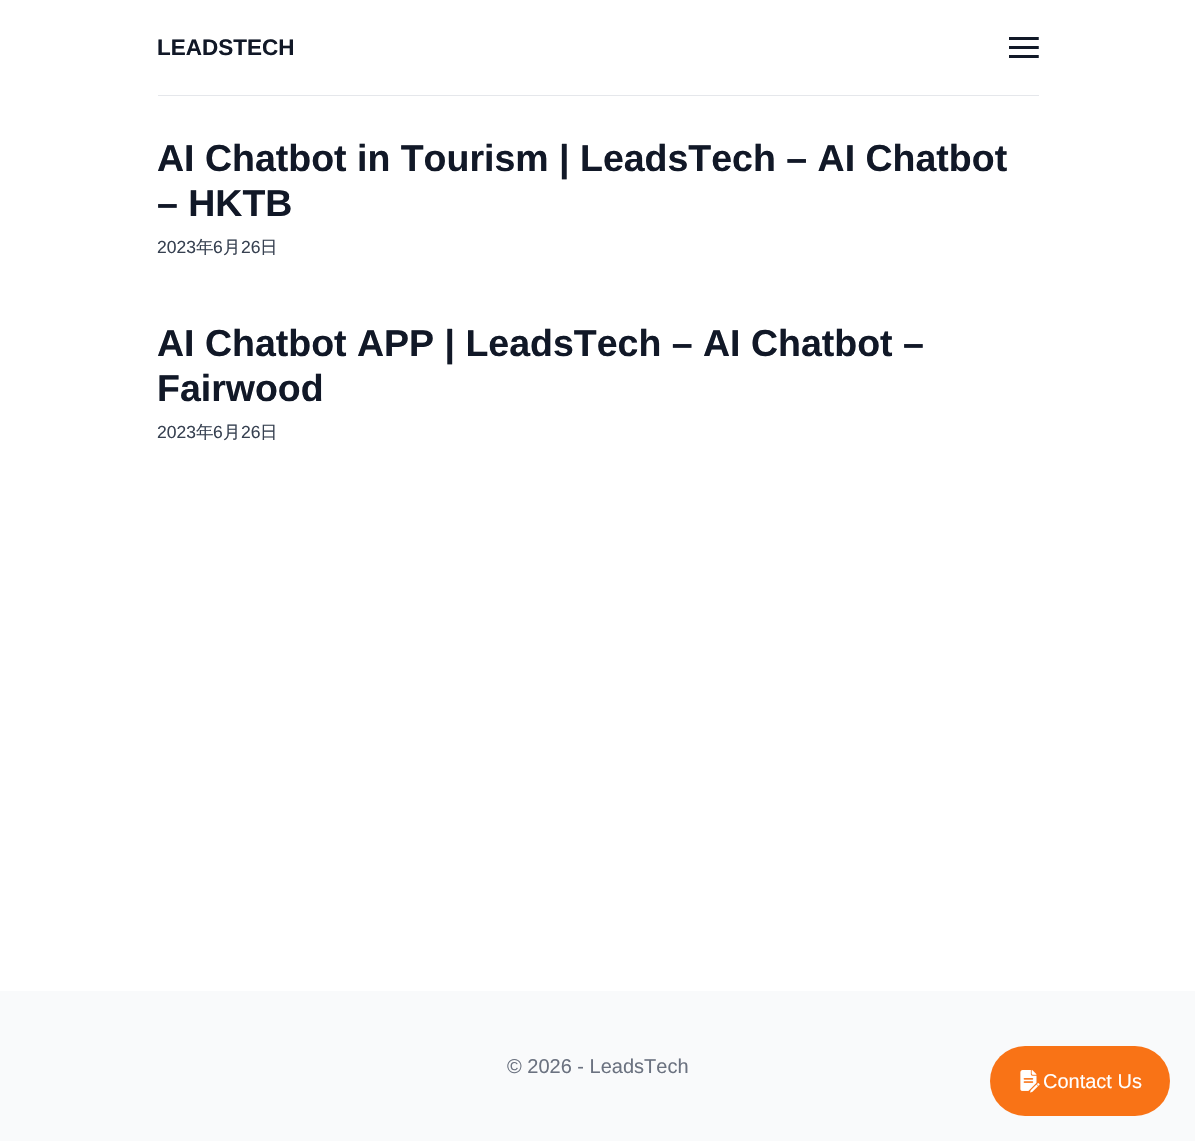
void draw(SkCanvas* canvas) {
  SkPaint paint;
  paint.setAntiAlias(true);
  auto face = [&](const char* family, int weight, float size, bool italic = false) {
    SkFontStyle style(weight, SkFontStyle::kNormal_Width,
      italic ? SkFontStyle::kItalic_Slant : SkFontStyle::kUpright_Slant);
    SkFont result(fontMgr->matchFamilyStyle(family, style), size);
    result.setSubpixel(true);
    return result;
  };
  auto paste = [&](const char* path, float x, float y, float w, float h) {
    auto image = SkImages::DeferredFromEncodedData(SkData::MakeFromFileName(path));
    canvas->drawImageRect(image, SkRect::MakeXYWH(x, y, w, h), SkSamplingOptions());
  };
  canvas->clear(0xffffffff);
  paint.setColor(0xffe5e7eb);
  canvas->drawRect(SkRect::MakeXYWH(158, 95, 881, 1), paint);
  paste("img/1.png", 1009, 37, 30, 21);
  paint.setColor(0xfff9fafb);
  canvas->drawRect(SkRect::MakeXYWH(0, 991, 1195, 150), paint);
  paint.setColor(0xfff97316);
  canvas->drawRoundRect(SkRect::MakeXYWH(990, 1046, 180, 70), 35, 35, paint);
  paste("img/2.png", 1020, 1070, 20, 23);
  auto f0 = face("Liberation Sans", 700, 22.5f);
  paint.setColor(0xff111827);
  canvas->drawString("LEADSTECH", 157, 55, f0, paint);
  auto f1 = face("Liberation Sans", 700, 37.5f);
  canvas->drawString("AI Chatbot in Tourism | LeadsTech – AI Chatbot", 157, 171, f1, paint);
  canvas->drawString("– HKTB", 157, 216, f1, paint);
  auto f2 = face("Liberation Sans", 400, 17.5f);
  paint.setColor(0xff374151);
  canvas->drawString("2023", 157, 253, f2, paint);
  auto f3 = face("WenQuanYi Zen Hei", 500, 17.5f);
  canvas->drawString("年", 196, 253, f3, paint);
  canvas->drawString("6", 213, 253, f2, paint);
  canvas->drawString("月", 223, 253, f3, paint);
  canvas->drawString("26", 241, 253, f2, paint);
  canvas->drawString("日", 260, 253, f3, paint);
  paint.setColor(0xff111827);
  canvas->drawString("AI Chatbot APP | LeadsTech – AI Chatbot –", 157, 356, f1, paint);
  canvas->drawString("Fairwood", 157, 401, f1, paint);
  paint.setColor(0xff374151);
  canvas->drawString("2023", 157, 438, f2, paint);
  canvas->drawString("年", 196, 438, f3, paint);
  canvas->drawString("6", 213, 438, f2, paint);
  canvas->drawString("月", 223, 438, f3, paint);
  canvas->drawString("26", 241, 438, f2, paint);
  canvas->drawString("日", 260, 438, f3, paint);
  auto f4 = face("Liberation Sans", 400, 20);
  paint.setColor(0xff6b7280);
  canvas->drawString("© 2026 - LeadsTech", 507, 1073, f4, paint);
  paint.setColor(0xffffffff);
  canvas->drawString("Contact Us", 1043, 1088, f4, paint);
}
